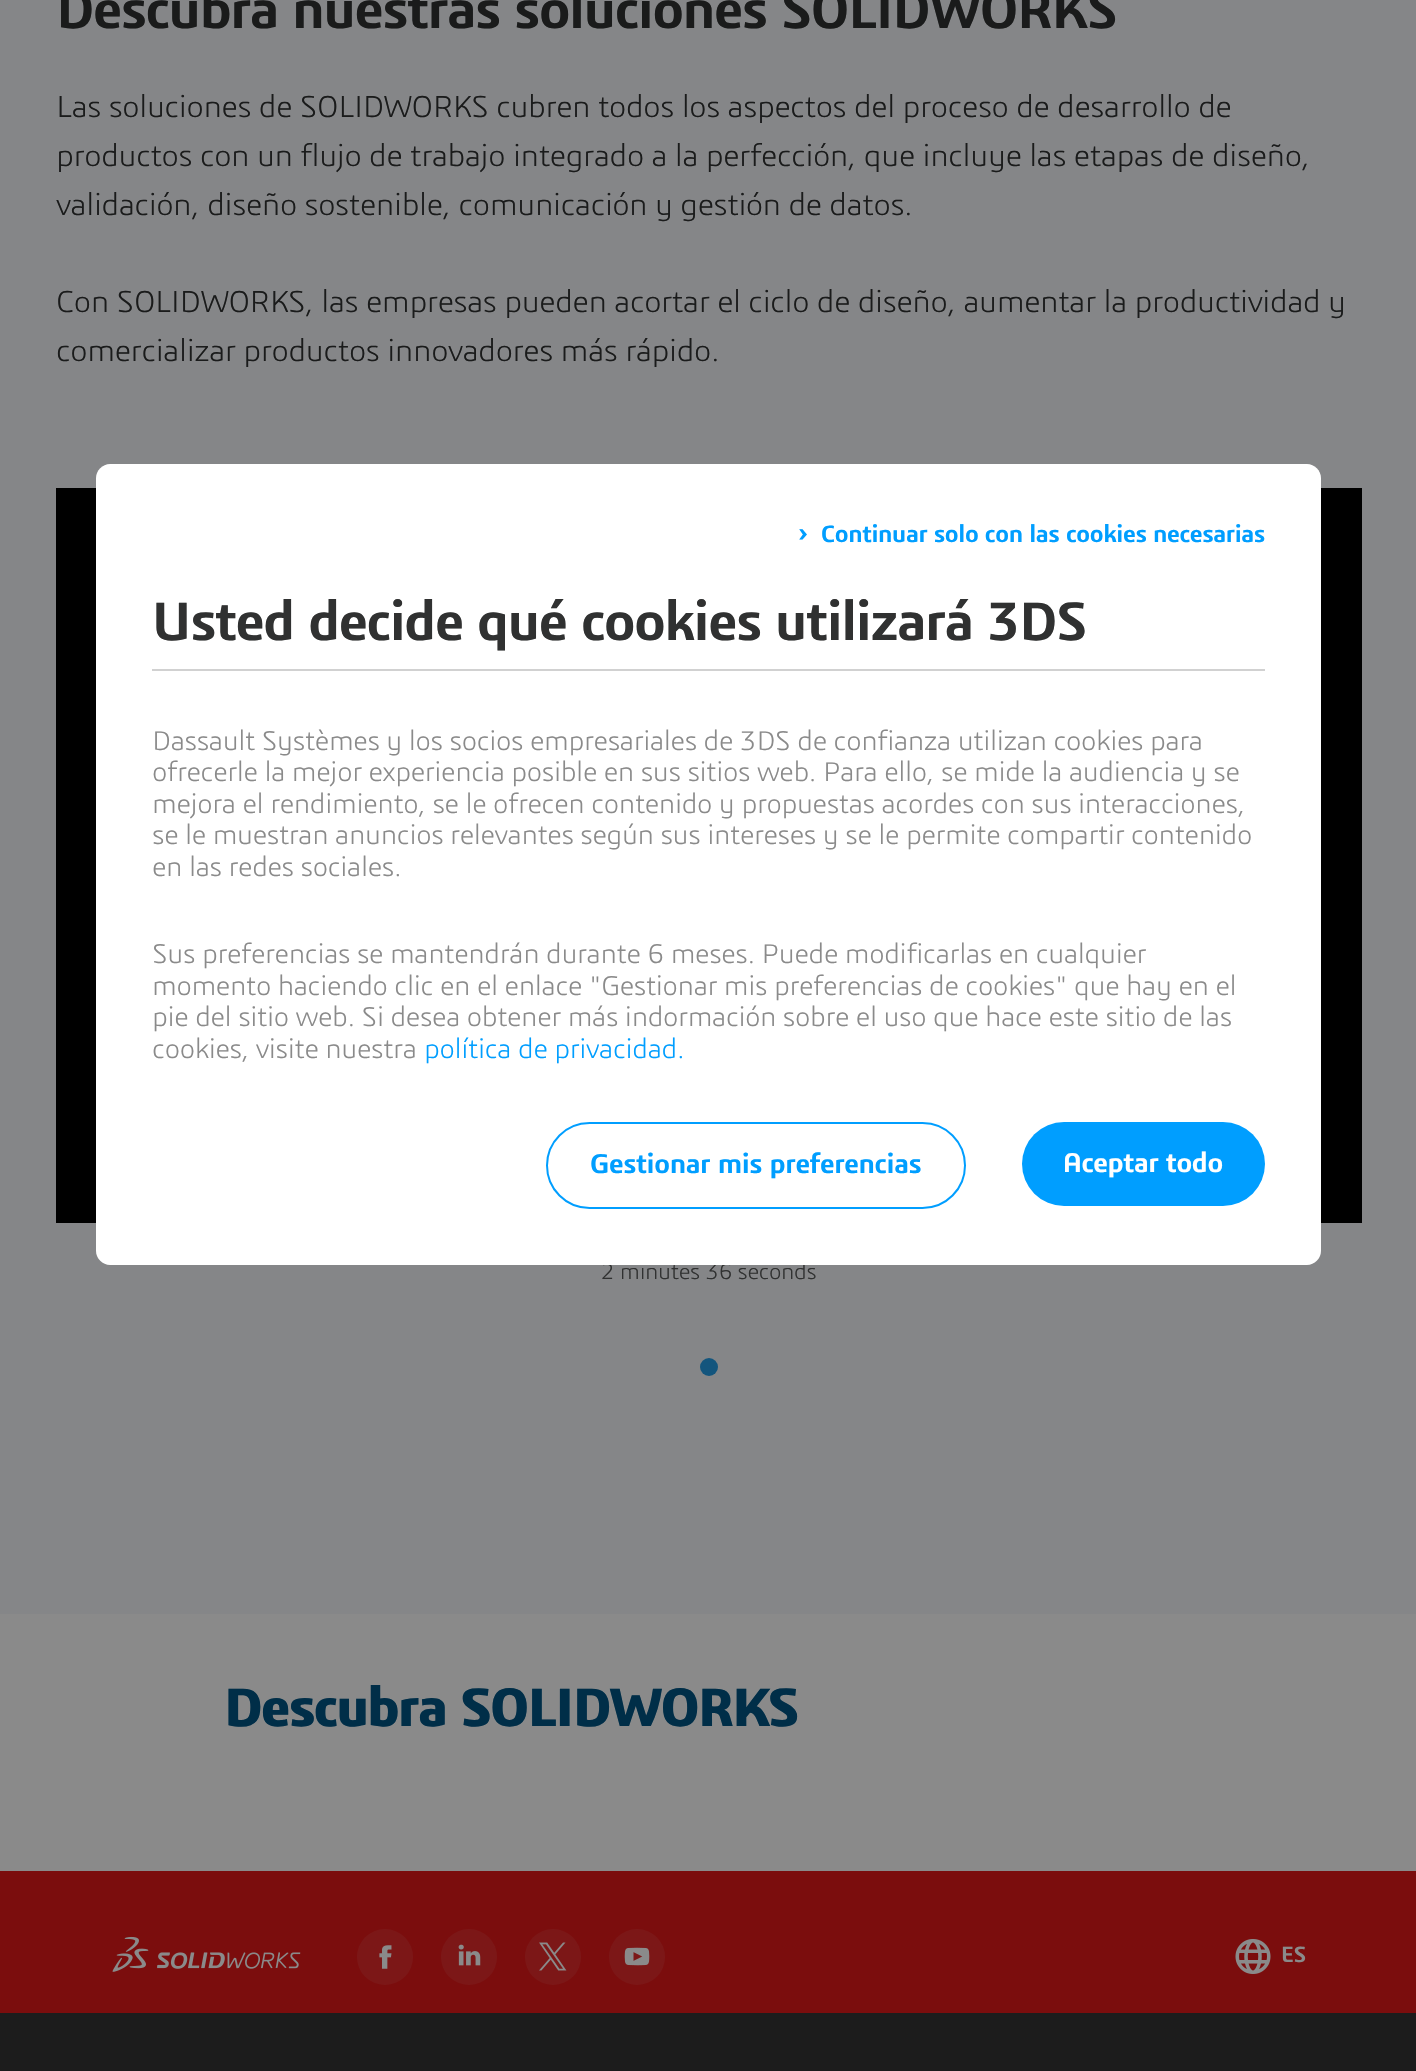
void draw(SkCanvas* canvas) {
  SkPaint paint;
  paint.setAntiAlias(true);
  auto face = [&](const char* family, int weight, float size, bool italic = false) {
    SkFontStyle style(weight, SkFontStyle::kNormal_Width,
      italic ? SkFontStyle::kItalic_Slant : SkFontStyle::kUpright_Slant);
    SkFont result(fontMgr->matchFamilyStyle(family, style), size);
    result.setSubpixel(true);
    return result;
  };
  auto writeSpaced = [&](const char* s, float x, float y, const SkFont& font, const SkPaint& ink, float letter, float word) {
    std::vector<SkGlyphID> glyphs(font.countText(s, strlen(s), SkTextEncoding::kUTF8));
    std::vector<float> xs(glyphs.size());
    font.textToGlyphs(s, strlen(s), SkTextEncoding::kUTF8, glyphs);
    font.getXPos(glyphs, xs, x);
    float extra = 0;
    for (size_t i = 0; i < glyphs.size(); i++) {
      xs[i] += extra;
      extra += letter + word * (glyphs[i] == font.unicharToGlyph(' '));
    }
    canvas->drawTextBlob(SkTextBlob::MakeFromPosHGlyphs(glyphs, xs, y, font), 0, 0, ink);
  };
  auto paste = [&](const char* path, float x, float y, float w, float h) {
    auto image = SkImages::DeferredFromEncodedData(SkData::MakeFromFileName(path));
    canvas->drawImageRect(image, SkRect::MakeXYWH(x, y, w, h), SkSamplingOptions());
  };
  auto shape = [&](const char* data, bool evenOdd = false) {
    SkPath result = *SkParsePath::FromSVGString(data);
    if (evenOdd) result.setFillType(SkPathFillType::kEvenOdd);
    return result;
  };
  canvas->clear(0xff8a8a8a);
  paint.setColor(0xff858688);
  canvas->drawRect(SkRect::MakeXYWH(0, 0, 1416, 1614), paint);
  paint.setColor(0xff000000);
  canvas->drawRect(SkRect::MakeXYWH(56, 488, 1306, 735), paint);
  paint.setColor(0xff13557d);
  canvas->drawCircle(709, 1367, 9, paint);
  paint.setColor(0xff7b0d0d);
  canvas->drawRect(SkRect::MakeXYWH(0, 1871, 1416, 142), paint);
  paste("img/1.png", 112, 1936, 189, 36);
  paint.setColor(0xff7c1717);
  canvas->drawCircle(385, 1957, 28, paint);
  paste("img/2.png", 379, 1945, 13, 24);
  canvas->drawCircle(469, 1957, 28, paint);
  paste("img/3.png", 458, 1944, 23, 22);
  canvas->drawCircle(553, 1957, 28, paint);
  paste("img/4.png", 539, 1942, 28, 29);
  canvas->drawCircle(637, 1957, 28, paint);
  paste("img/5.png", 624, 1947, 26, 19);
  paste("img/6.png", 1235, 1939, 36, 35);
  paint.setColor(0xff1c1c1c);
  canvas->drawRect(SkRect::MakeXYWH(0, 2013, 1416, 58), paint);
  paint.setColor(0xffffffff);
  canvas->drawPath(shape("M110 464H1307C1314.5 464 1321 470.5 1321 478V1122H96V478C96 470.5 102.5 464 110 464Z"), paint);
  paint.setColor(0xffd1d1d1);
  canvas->drawRect(SkRect::MakeXYWH(152, 669, 1113, 2), paint);
  auto f0 = face("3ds", 600, 56);
  paint.setColor(0xff1a1b1b);
  writeSpaced("Descubra nuestras soluciones SOLIDWORKS", 56, 28, f0, paint, -1.4f, 0);
  auto f1 = face("3ds", 300, 31.5f);
  {
    const struct { const char* s; float x, y; } items[] = {
      {"Las soluciones de SOLIDWORKS cubren todos los aspectos del proceso de desarrollo de", 56, 117},
      {"productos con un flujo de trabajo integrado a la perfección, que incluye las etapas de diseño,", 56, 166},
      {"validación, diseño sostenible, comunicación y gestión de datos.", 56, 215},
      {"Con SOLIDWORKS, las empresas pueden acortar el ciclo de diseño, aumentar la productividad y", 56, 312},
      {"comercializar productos innovadores más rápido.", 56, 361},
    };
    for (auto [s, x, y] : items) {
      writeSpaced(s, x, y, f1, paint, -0.35f, 0);
    }
  }
  auto f2 = face("3ds", 300, 22.75f);
  paint.setColor(0xff303131);
  writeSpaced("2 minutes 36 seconds", 601, 1279, f2, paint, -0.35f, 0);
  auto f3 = face("3ds", 700, 56);
  paint.setColor(0xff002e48);
  writeSpaced("Descubra SOLIDWORKS", 224, 1726, f3, paint, -1.6f, 0);
  auto f4 = face("3ds", 600, 22.75f);
  paint.setColor(0xff8a8a8a);
  writeSpaced("ES", 1281, 1962, f4, paint, -0.35f, 0);
  auto f5 = face("3ds", 600, 28);
  paint.setColor(0xff009eff);
  writeSpaced("›", 798, 542, f5, paint, -0.35f, 0);
  auto f6 = face("3ds", 600, 24.5f);
  writeSpaced("Continuar solo con las cookies necesarias", 821, 542, f6, paint, -0.35f, 0);
  paint.setColor(0xff303131);
  writeSpaced("Usted decide qué cookies utilizará 3DS", 152, 640, f0, paint, -1.4f, 0);
  auto f7 = face("3ds", 300, 28);
  paint.setColor(0xff8a8a8a);
  {
    const struct { const char* s; float x, y; } items[] = {
      {"Dassault Systèmes y los socios empresariales de 3DS de confianza utilizan cookies para", 152, 750},
      {"ofrecerle la mejor experiencia posible en sus sitios web. Para ello, se mide la audiencia y se", 152, 781},
      {"mejora el rendimiento, se le ofrecen contenido y propuestas acordes con sus interacciones,", 152, 813},
      {"se le muestran anuncios relevantes según sus intereses y se le permite compartir contenido", 152, 844},
      {"en las redes sociales.", 152, 876},
      {"Sus preferencias se mantendrán durante 6 meses. Puede modificarlas en cualquier", 152, 963},
      {"momento haciendo clic en el enlace \"Gestionar mis preferencias de cookies\" que hay en el", 152, 995},
      {"pie del sitio web. Si desea obtener más indormación sobre el uso que hace este sitio de las", 152, 1026},
      {"cookies, visite nuestra", 152, 1058},
    };
    for (auto [s, x, y] : items) {
      writeSpaced(s, x, y, f7, paint, -0.35f, 0);
    }
  }
  paint.setColor(0xff009eff);
  writeSpaced("política de privacidad.", 424, 1058, f7, paint, -0.35f, 0);
  paint.setColor(0xffffffff);
  canvas->drawPath(shape("M96 1122H1321V1251C1321 1258.5 1314.5 1265 1307 1265H110C102.5 1265 96 1258.5 96 1251Z"), paint);
  paint.setStroke(true);
  paint.setStrokeWidth(2);
  paint.setColor(0xff009eff);
  canvas->drawRoundRect(SkRect::MakeXYWH(547, 1123, 418, 85), 42.5f, 42.5f, paint);
  paint.setStroke(false);
  writeSpaced("Gestionar mis preferencias", 590, 1173, f5, paint, -0.35f, 0);
  canvas->drawRoundRect(SkRect::MakeXYWH(1022, 1122, 243, 84), 42, 42, paint);
  paint.setColor(0xffffffff);
  writeSpaced("Aceptar todo", 1063, 1172, f5, paint, -0.35f, 0);
}
